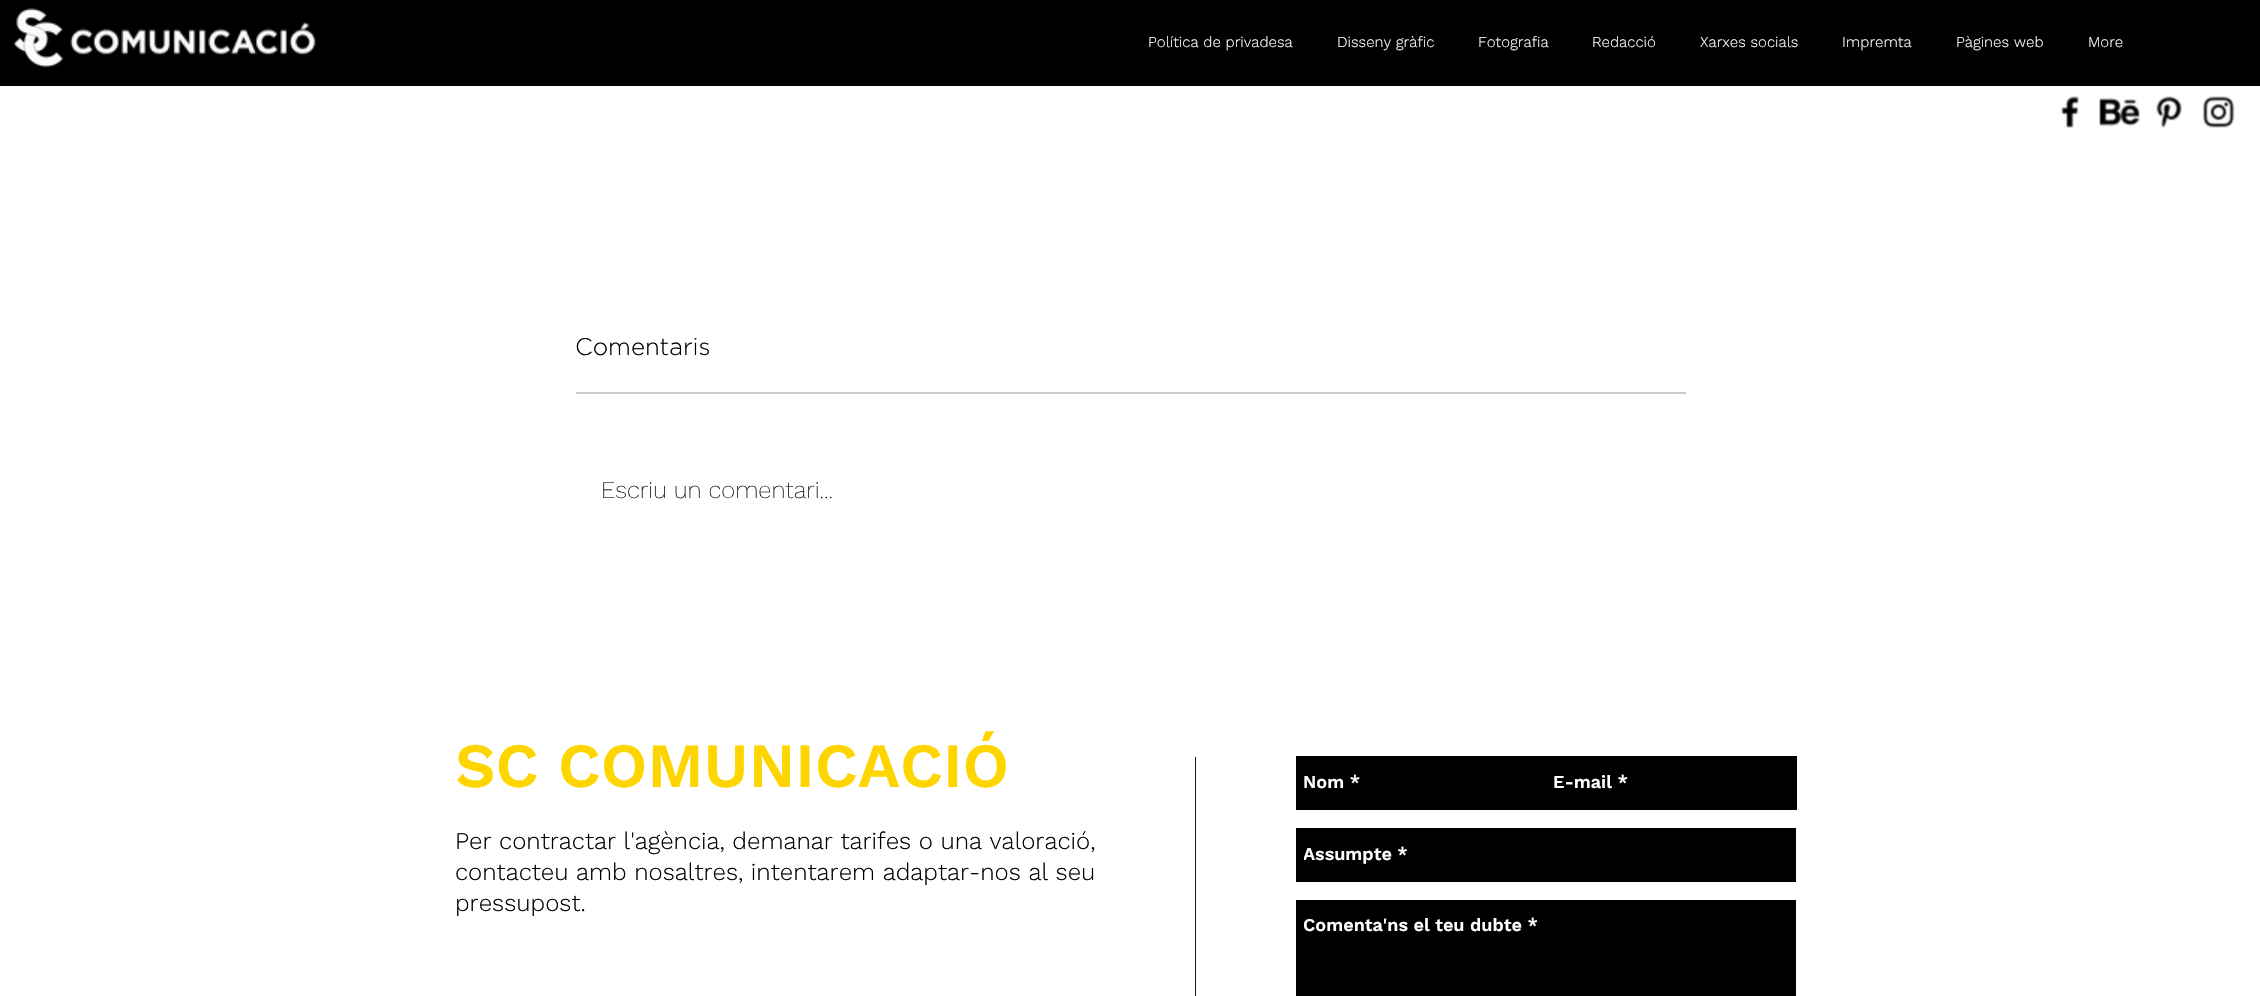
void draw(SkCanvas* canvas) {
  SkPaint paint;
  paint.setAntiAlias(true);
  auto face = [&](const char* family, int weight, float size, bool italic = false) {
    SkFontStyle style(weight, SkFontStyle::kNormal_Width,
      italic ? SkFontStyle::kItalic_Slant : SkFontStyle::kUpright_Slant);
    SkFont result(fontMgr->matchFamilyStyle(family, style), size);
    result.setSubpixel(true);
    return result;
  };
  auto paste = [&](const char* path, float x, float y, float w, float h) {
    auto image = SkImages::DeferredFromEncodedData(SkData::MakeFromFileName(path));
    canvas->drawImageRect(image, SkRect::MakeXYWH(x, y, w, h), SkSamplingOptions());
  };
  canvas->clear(0xffffffff);
  paint.setColor(0xff000000);
  canvas->drawRect(SkRect::MakeXYWH(0, 0, 2260, 86), paint);
  paste("img/1.png", 13, 8, 51, 59);
  paste("img/2.png", 70, 22, 246, 33);
  paste("img/3.png", 2060, 96, 20, 32);
  paste("img/4.png", 2099, 97, 41, 30);
  paste("img/5.png", 2156, 96, 26, 32);
  paste("img/6.png", 2202, 96, 33, 32);
  {
    const struct { float x, y, w, h; SkColor color; } items[] = {
      {576, 392, 1110, 2, 0xffcccccc},
      {1195, 757, 1, 239, 0xff062134},
      {1296, 756, 501, 54, 0xff000000},
      {1296, 828, 500, 54, 0xff000000},
      {1296, 900, 500, 96, 0xff000000},
    };
    for (auto [x, y, w, h, color] : items) {
      paint.setColor(color);
      canvas->drawRect(SkRect::MakeXYWH(x, y, w, h), paint);
    }
  }
  auto f0 = face("Work Sans", 300, 15);
  paint.setColor(0xffffffff);
  {
    const struct { const char* s; float x, y; } items[] = {
      {"Política de privadesa", 1148, 47},
      {"Disseny gràfic", 1337, 47},
      {"Fotografia", 1478, 47},
      {"Redacció", 1592, 47},
      {"Xarxes socials", 1700, 47},
      {"Impremta", 1842, 47},
      {"Pàgines web", 1956, 47},
      {"More", 2088, 47},
    };
    for (auto [s, x, y] : items) {
      canvas->drawString(s, x, y, f0, paint);
    }
  }
  auto f1 = face("Gotham", 300, 24);
  paint.setColor(0xff000000);
  canvas->drawString("Comentaris", 575, 355, f1, paint);
  auto f2 = face("Work Sans", 200, 24);
  canvas->drawString("Escriu un comentari...", 601, 498, f2, paint);
  auto f3 = face("Work Sans", 600, 63);
  paint.setColor(0xffffd500);
  canvas->drawString("SC COMUNICACIÓ", 455, 787, f3, paint);
  auto f4 = face("Work Sans", 600, 18);
  paint.setColor(0xffffffff);
  canvas->drawString("Nom *", 1303, 788, f4, paint);
  canvas->drawString("E-mail *", 1553, 788, f4, paint);
  canvas->save();
  canvas->clipRect(SkRect::MakeXYWH(1304, 845, 487, 21));
  canvas->drawString("Assumpte *", 1303, 860, f4, paint);
  canvas->restore();
  canvas->drawString("Comenta'ns el teu dubte *", 1303, 931, f4, paint);
  auto f5 = face("Work Sans", 300, 24);
  paint.setColor(0xff000000);
  {
    const struct { const char* s; float x, y; } items[] = {
      {"Per contractar l'agència, demanar tarifes o una valoració,", 455, 849},
      {"contacteu amb nosaltres, intentarem adaptar-nos al seu", 455, 880},
      {"pressupost.", 455, 911},
    };
    for (auto [s, x, y] : items) {
      canvas->drawString(s, x, y, f5, paint);
    }
  }
}
